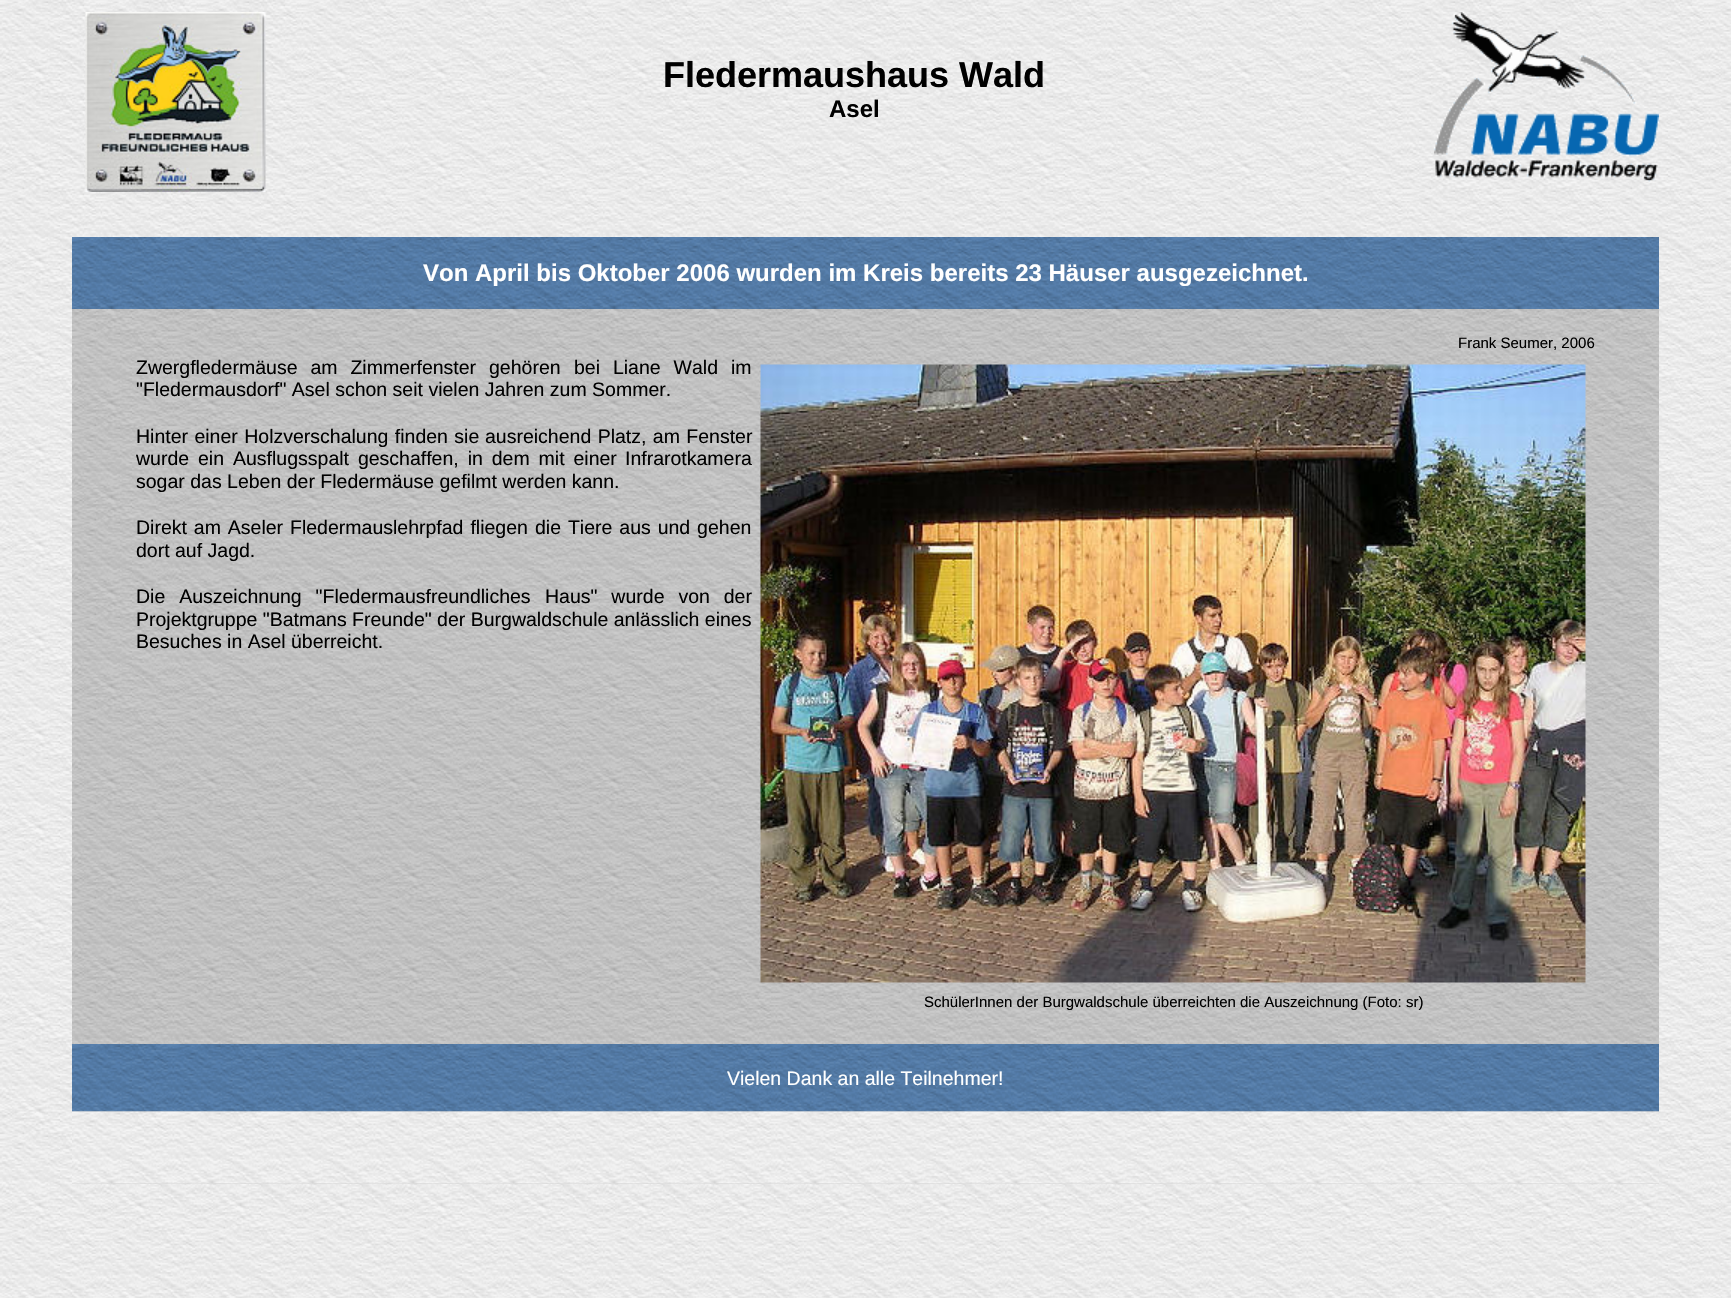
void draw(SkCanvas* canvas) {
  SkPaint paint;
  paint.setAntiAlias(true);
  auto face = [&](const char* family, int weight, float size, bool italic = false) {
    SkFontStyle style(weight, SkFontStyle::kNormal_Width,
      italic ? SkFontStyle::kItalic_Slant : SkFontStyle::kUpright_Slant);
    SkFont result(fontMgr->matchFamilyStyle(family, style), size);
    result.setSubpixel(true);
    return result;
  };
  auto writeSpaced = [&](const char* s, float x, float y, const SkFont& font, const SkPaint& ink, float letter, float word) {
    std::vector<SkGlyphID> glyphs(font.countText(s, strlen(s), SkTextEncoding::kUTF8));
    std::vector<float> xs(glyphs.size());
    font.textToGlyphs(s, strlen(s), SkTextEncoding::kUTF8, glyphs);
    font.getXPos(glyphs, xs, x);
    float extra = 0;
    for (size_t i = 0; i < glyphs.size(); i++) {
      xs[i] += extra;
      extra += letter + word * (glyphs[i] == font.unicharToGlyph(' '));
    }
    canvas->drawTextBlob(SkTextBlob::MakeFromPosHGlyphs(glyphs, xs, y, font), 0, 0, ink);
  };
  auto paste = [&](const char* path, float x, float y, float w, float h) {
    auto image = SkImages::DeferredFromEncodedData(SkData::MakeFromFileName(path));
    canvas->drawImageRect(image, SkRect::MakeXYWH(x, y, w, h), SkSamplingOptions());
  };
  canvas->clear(0xffffffff);
  paste("img/1.png", 0, 0, 1731, 1298);
  paste("img/2.png", 85, 12, 181, 180);
  paste("img/3.png", 1434, 12, 225, 170);
  paste("img/4.png", 72, 309, 1587, 875);
  paste("img/5.png", 72, 237, 1587, 72);
  paste("img/6.png", 760, 364, 826, 619);
  paste("img/7.png", 72, 1044, 1587, 68);
  paste("img/8.png", 72, 1111, 1587, 73);
  auto f0 = face("Liberation Sans", 700, 36);
  paint.setColor(0xff000000);
  canvas->drawString("Fledermaushaus Wald", 663, 87, f0, paint);
  auto f1 = face("Liberation Sans", 700, 24);
  canvas->drawString("Asel", 829, 117, f1, paint);
  paint.setColor(0xffffffff);
  canvas->drawString("Von April bis Oktober 2006 wurden im Kreis bereits 23 Häuser ausgezeichnet.", 423, 281, f1, paint);
  auto f2 = face("Liberation Sans", 400, 15);
  paint.setColor(0xff000000);
  canvas->drawString("Frank Seumer, 2006", 1458, 348, f2, paint);
  auto f3 = face("Liberation Sans", 400, 19.5f);
  writeSpaced("Zwergfledermäuse am Zimmerfenster gehören", 136, 374, f3, paint, 0, 7.5f);
  writeSpaced("bei Liane Wald im", 574, 374, f3, paint, 0, 7.5f);
  canvas->drawString("\"Fledermausdorf\" Asel schon seit vielen Jahren zum Sommer.", 136, 396, f3, paint);
  writeSpaced("Hinter einer Holzverschalung finden sie", 136, 443, f3, paint, 0, 1);
  writeSpaced("ausreichend Platz, am Fenster", 485, 443, f3, paint, 0, 1);
  writeSpaced("wurde ein", 136, 465, f3, paint, 0, 3.5f);
  writeSpaced("Ausflugsspalt geschaffen, in dem mit einer", 233, 465, f3, paint, 0, 3.5f);
  canvas->drawString("Infrarotkamera", 625, 465, f3, paint);
  canvas->drawString("sogar das Leben der Fledermäuse gefilmt werden kann.", 136, 488, f3, paint);
  writeSpaced("Direkt am Aseler Fledermauslehrpfad fliegen", 136, 534, f3, paint, 0, 1.5f);
  writeSpaced("die Tiere aus und gehen", 535, 534, f3, paint, 0, 1.5f);
  canvas->drawString("dort auf Jagd.", 136, 557, f3, paint);
  writeSpaced("Die Auszeichnung \"Fledermausfreundliches", 136, 603, f3, paint, 0, 8.5f);
  writeSpaced("Haus\" wurde von der", 545, 603, f3, paint, 0, 8.5f);
  canvas->drawString("Projektgruppe \"Batmans Freunde\" der Burgwaldschule anlässlich eines", 136, 626, f3, paint);
  canvas->drawString("Besuches in Asel überreicht.", 136, 648, f3, paint);
  canvas->drawString("SchülerInnen der Burgwaldschule überreichten die Auszeichnung (Foto: sr)", 924, 1007, f2, paint);
  paint.setColor(0xffffffff);
  canvas->drawString("Vielen Dank an alle Teilnehmer!", 727, 1085, f3, paint);
}
